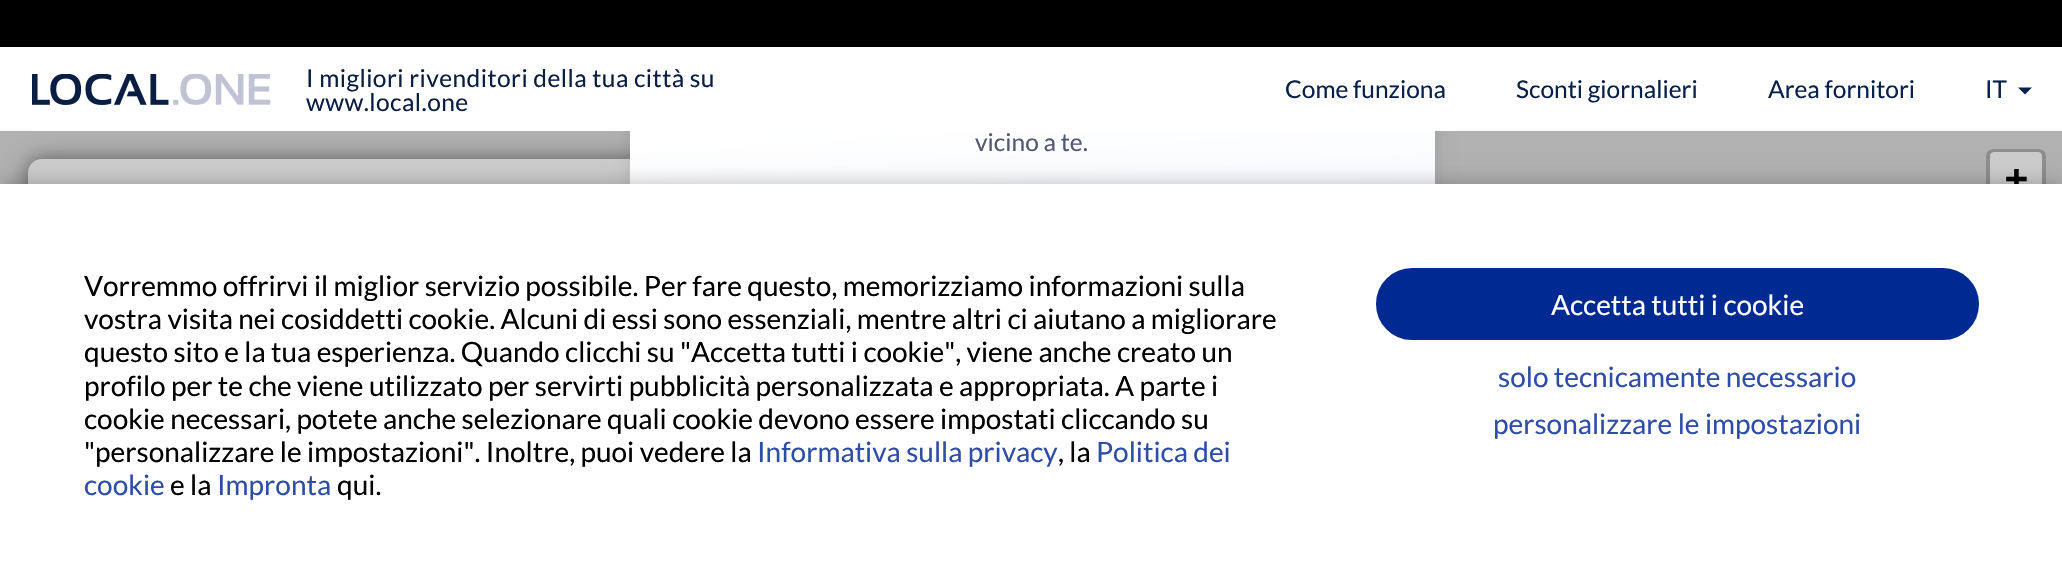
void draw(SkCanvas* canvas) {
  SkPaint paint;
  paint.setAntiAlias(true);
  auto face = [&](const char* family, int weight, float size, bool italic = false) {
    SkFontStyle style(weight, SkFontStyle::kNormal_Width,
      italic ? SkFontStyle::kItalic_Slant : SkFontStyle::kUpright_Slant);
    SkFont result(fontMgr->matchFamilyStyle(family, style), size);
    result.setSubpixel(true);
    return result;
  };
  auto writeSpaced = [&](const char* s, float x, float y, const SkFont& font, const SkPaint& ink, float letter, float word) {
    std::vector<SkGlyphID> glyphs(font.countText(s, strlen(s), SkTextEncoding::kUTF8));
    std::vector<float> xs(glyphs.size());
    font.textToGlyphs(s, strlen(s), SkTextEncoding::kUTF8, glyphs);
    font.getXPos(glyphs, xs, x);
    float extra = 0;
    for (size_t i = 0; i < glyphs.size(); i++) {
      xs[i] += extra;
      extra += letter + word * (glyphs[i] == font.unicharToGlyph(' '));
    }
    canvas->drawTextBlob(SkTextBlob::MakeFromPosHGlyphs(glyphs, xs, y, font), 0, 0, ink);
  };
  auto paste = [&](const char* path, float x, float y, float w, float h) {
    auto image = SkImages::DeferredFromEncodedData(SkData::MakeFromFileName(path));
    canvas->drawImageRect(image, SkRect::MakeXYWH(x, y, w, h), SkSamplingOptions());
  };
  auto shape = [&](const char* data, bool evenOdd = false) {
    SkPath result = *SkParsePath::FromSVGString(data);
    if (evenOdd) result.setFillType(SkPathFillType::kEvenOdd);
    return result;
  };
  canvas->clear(0xffffffff);
  paint.setColor(0xffb1b1b1);
  canvas->drawRect(SkRect::MakeXYWH(0, 131, 2062, 53), paint);
  paint.setColor(0x80000000);
  paint.setMaskFilter(SkMaskFilter::MakeBlur(kNormal_SkBlurStyle, 10.5f));
  canvas->drawRoundRect(SkRect::MakeXYWH(28, 159, 655, 84), 14, 14, paint);
  paint.setMaskFilter(nullptr);
  paint.setColor(0xffcccccc);
  canvas->drawRoundRect(SkRect::MakeXYWH(28, 159, 655, 84), 14, 14, paint);
  canvas->save();
  canvas->clipRect(SkRect::MakeXYWH(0, 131, 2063, 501));
  paint.setColor(0x1a000000);
  paint.setMaskFilter(SkMaskFilter::MakeBlur(kNormal_SkBlurStyle, 9.5f));
  canvas->drawRoundRect(SkRect::MakeXYWH(630, -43, 805, 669), 14, 14, paint);
  paint.setMaskFilter(nullptr);
  canvas->restore();
  paint.setColor(0xff000000);
  canvas->drawRect(SkRect::MakeXYWH(0, 0, 2062, 47), paint);
  paste("img/1.png", 32, 74, 239, 31);
  paint.setColor(0xff08214c);
  canvas->drawPath(shape("M2018 87.5H2032L2025 94.5Z"), paint);
  {
    const SkColor colors[] = {0xffffffff, 0xffe7eeff, 0xffffffff};
    const float stops[] = {0.24f, 0.71f, 0.97f};
    const SkPoint ends[] = {{998, -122}, {1067, 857}};
    paint.setShader(SkGradientShader::MakeLinear(ends, colors, stops, 3, SkTileMode::kClamp));
    paint.setAlpha(255);
  }
  canvas->drawRect(SkRect::MakeXYWH(630, 131, 805, 53), paint);
  paint.setStroke(true);
  paint.setStrokeWidth(4);
  paint.setShader(nullptr);
  paint.setColor(0xff8e8e8e);
  canvas->drawRoundRect(SkRect::MakeXYWH(1988, 151, 56, 108), 5, 5, paint);
  paint.setStroke(false);
  paint.setColor(0xffcccccc);
  canvas->drawPath(shape("M1994 152H2038C2040 152 2042 154 2042 156V205H1990V156C1990 154 1992 152 1994 152Z"), paint);
  paint.setColor(0x40000000);
  paint.setMaskFilter(SkMaskFilter::MakeBlur(kNormal_SkBlurStyle, 10.5f));
  canvas->drawRect(SkRect::MakeXYWH(0, 184, 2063, 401), paint);
  paint.setMaskFilter(nullptr);
  auto f0 = face("Lato", 400, 24.5f);
  paint.setColor(0xff0a1e43);
  writeSpaced("I migliori rivenditori della tua città su", 306, 87, f0, paint, 0.45f, 0);
  writeSpaced("www.local.one", 306, 111, f0, paint, 0.45f, 0);
  paint.setColor(0xff08214c);
  {
    const struct { const char* s; float x, y; } items[] = {
      {"Come funziona", 1285, 98},
      {"Sconti giornalieri", 1516, 98},
      {"Area fornitori", 1768, 98},
      {"IT", 1985, 98},
    };
    for (auto [s, x, y] : items) {
      canvas->drawString(s, x, y, f0, paint);
    }
  }
  paint.setColor(0xff525871);
  canvas->drawString("vicino a te.", 975, 151, f0, paint);
  auto f1 = face("DejaVu Sans Mono", 700, 38);
  paint.setColor(0xff000000);
  canvas->drawString("+", 2005, 191, f1, paint);
  paint.setColor(0xffffffff);
  canvas->drawRect(SkRect::MakeXYWH(0, 184, 2062, 399), paint);
  auto f2 = face("Lato", 400, 28);
  paint.setColor(0xff000000);
  {
    const struct { const char* s; float x, y; } items[] = {
      {"Vorremmo offrirvi il miglior servizio possibile. Per fare questo, memorizziamo informazioni sulla", 84, 296},
      {"vostra visita nei cosiddetti cookie. Alcuni di essi sono essenziali, mentre altri ci aiutano a migliorare", 84, 329},
      {"questo sito e la tua esperienza. Quando clicchi su \"Accetta tutti i cookie\", viene anche creato un", 84, 362},
      {"profilo per te che viene utilizzato per servirti pubblicità personalizzata e appropriata. A parte i", 84, 396},
      {"cookie necessari, potete anche selezionare quali cookie devono essere impostati cliccando su", 84, 429},
      {"\"personalizzare le impostazioni\". Inoltre, puoi vedere la", 84, 462},
    };
    for (auto [s, x, y] : items) {
      canvas->drawString(s, x, y, f2, paint);
    }
  }
  paint.setColor(0xff2e4da7);
  canvas->drawString("Informativa sulla privacy", 757, 462, f2, paint);
  paint.setColor(0xff000000);
  canvas->drawString(", la", 1058, 462, f2, paint);
  paint.setColor(0xff2e4da7);
  canvas->drawString("Politica dei", 1096, 462, f2, paint);
  canvas->drawString("cookie", 84, 495, f2, paint);
  paint.setColor(0xff000000);
  canvas->drawString("e la", 170, 495, f2, paint);
  paint.setColor(0xff2e4da7);
  canvas->drawString("Impronta", 217, 495, f2, paint);
  paint.setColor(0xff000000);
  canvas->drawString("qui.", 337, 495, f2, paint);
  paint.setColor(0xff002a91);
  canvas->drawRoundRect(SkRect::MakeXYWH(1377, 269, 601, 70), 35, 35, paint);
  paint.setStroke(true);
  paint.setStrokeWidth(2);
  canvas->drawRoundRect(SkRect::MakeXYWH(1377, 269, 601, 70), 35, 35, paint);
  paint.setStroke(false);
  paint.setColor(0xffffffff);
  canvas->drawString("Accetta tutti i cookie", 1551, 315, f2, paint);
  paint.setColor(0xff2e4da7);
  canvas->drawString("solo tecnicamente necessario", 1498, 387, f2, paint);
  canvas->drawString("personalizzare le impostazioni", 1493, 434, f2, paint);
}
